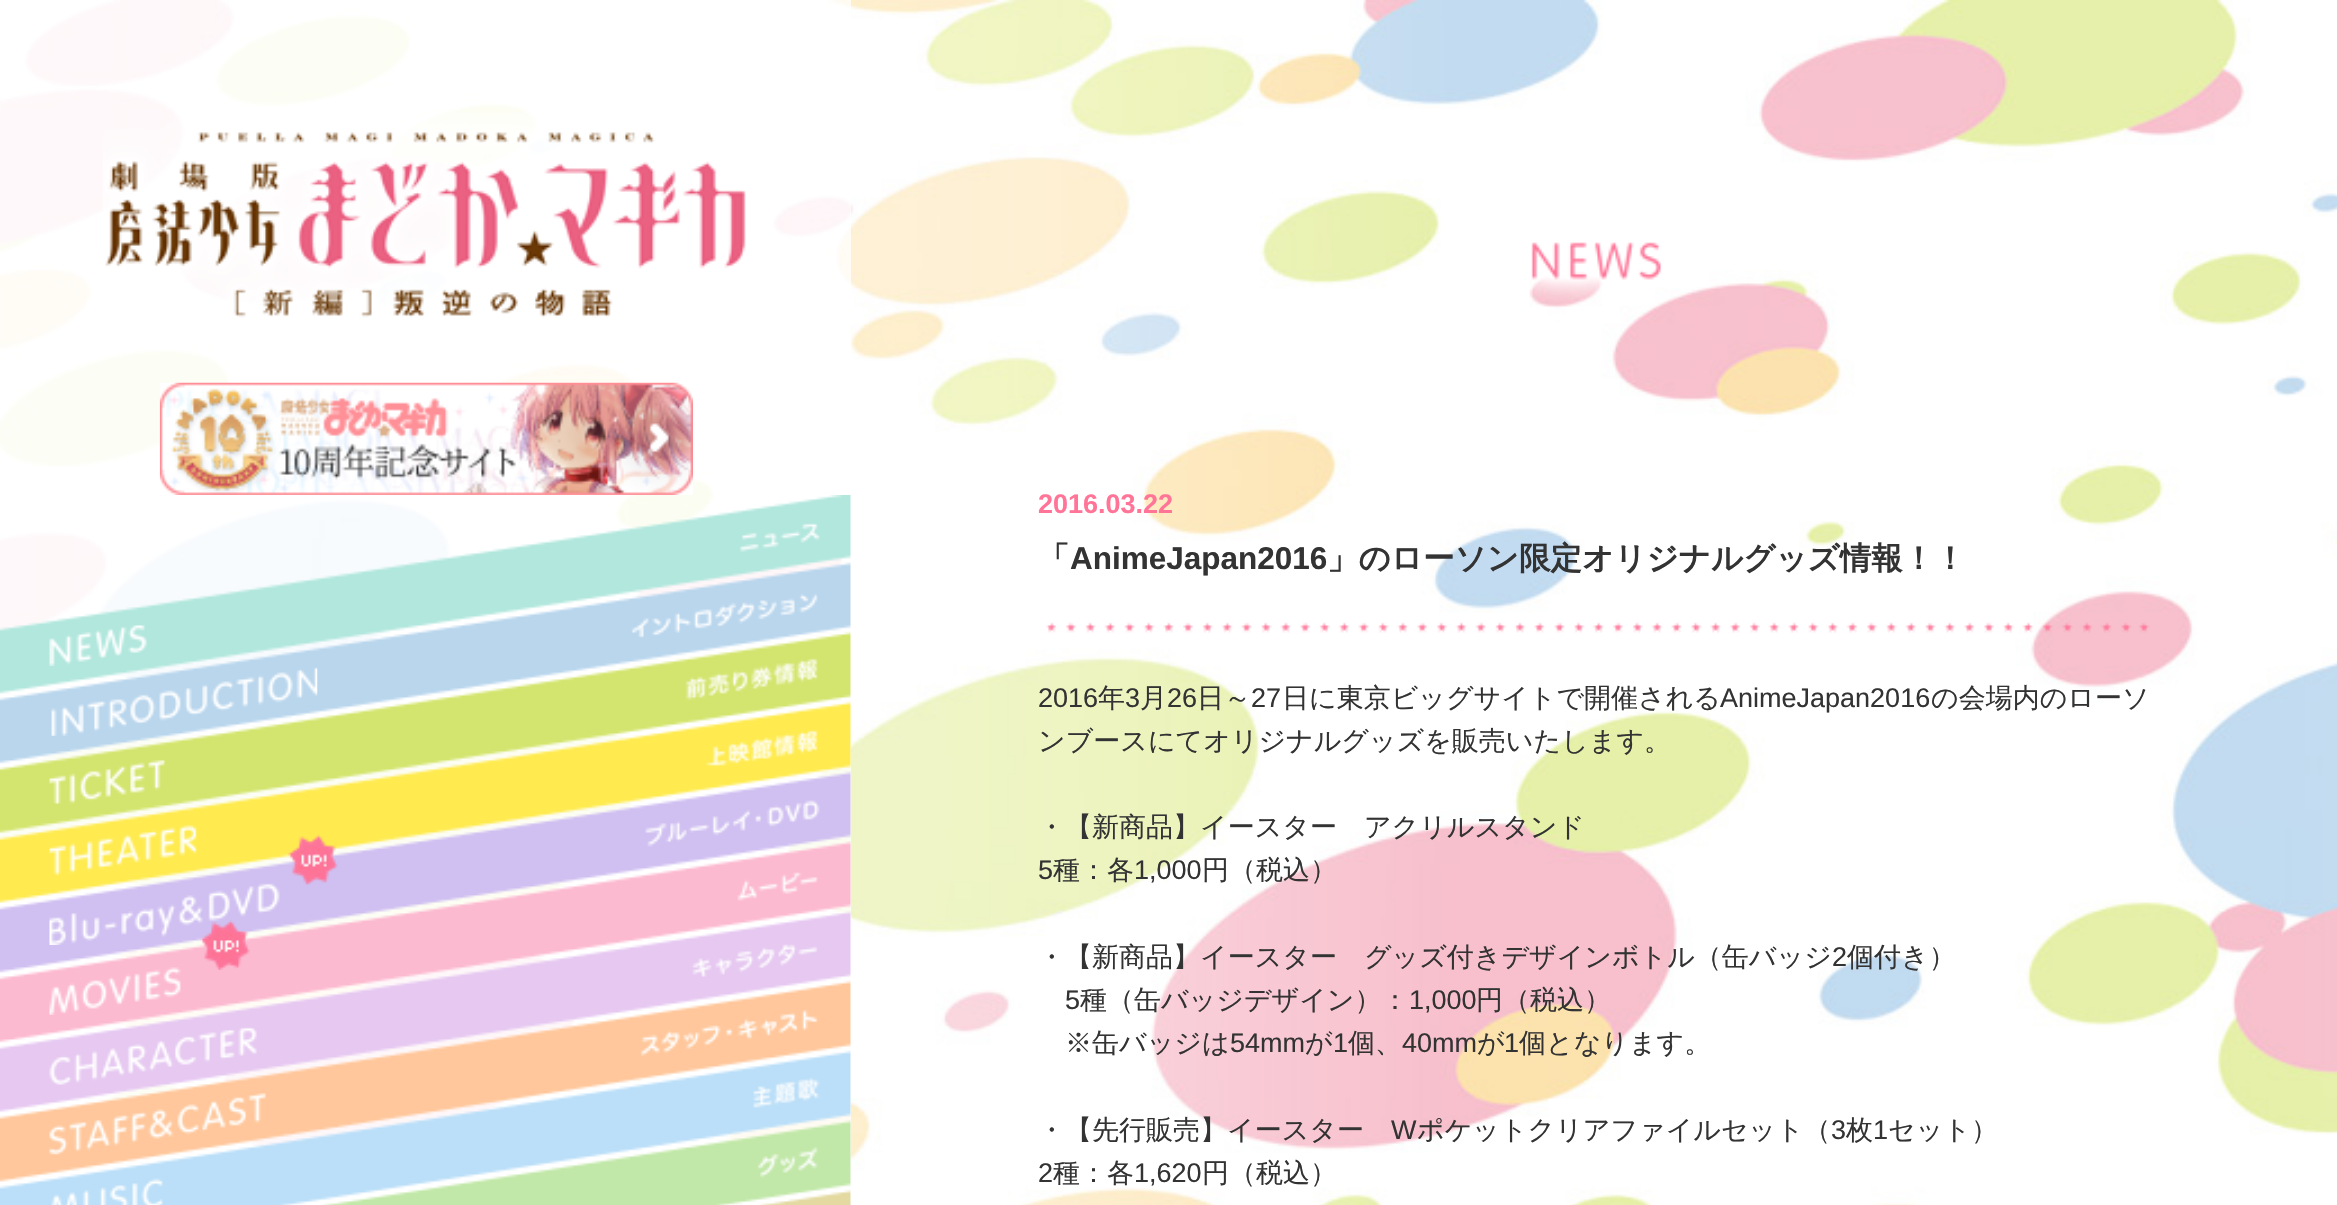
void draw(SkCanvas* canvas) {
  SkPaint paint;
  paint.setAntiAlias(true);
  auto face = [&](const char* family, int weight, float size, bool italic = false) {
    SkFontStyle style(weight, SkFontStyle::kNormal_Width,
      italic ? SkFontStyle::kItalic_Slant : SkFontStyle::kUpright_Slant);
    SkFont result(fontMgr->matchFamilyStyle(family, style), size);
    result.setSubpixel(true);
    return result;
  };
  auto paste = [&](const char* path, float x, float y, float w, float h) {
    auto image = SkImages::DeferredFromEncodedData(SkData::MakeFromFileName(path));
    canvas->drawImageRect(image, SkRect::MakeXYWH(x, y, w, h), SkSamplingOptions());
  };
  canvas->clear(0xffffffff);
  paste("img/1.png", 0, 0, 2337, 1205);
  paint.setColor(0xbfffffff);
  canvas->drawRect(SkRect::MakeXYWH(0, 0, 851, 1205), paint);
  paste("img/2.png", 103, 112, 643, 206);
  paste("img/3.png", 159, 382, 534, 113);
  paste("img/4.png", 0, 495, 851, 710);
  paste("img/5.png", 49, 625, 98, 41);
  paste("img/6.png", 51, 667, 267, 69);
  paste("img/7.png", 49, 760, 116, 44);
  paste("img/8.png", 49, 825, 148, 51);
  paste("img/9.png", 288, 834, 50, 51);
  paste("img/10.png", 49, 883, 231, 62);
  paste("img/11.png", 200, 920, 50, 50);
  paste("img/12.png", 49, 967, 132, 48);
  paste("img/13.png", 49, 1027, 208, 58);
  paste("img/14.png", 49, 1093, 217, 62);
  paste("img/15.png", 51, 1178, 112, 27);
  paste("img/16.png", 1531, 242, 131, 61);
  paste("img/17.png", 1046, 622, 1104, 11);
  auto f0 = face("Liberation Sans", 700, 27);
  paint.setColor(0xffff7497);
  canvas->drawString("2016.03.22", 1038, 513, f0, paint);
  auto f1 = face("WenQuanYi Zen Hei", 700, 31.5f);
  paint.setColor(0xff333333);
  canvas->drawString("「", 1038, 569, f1, paint);
  auto f2 = face("Liberation Sans", 700, 31.5f);
  canvas->drawString("AnimeJapan2016", 1070, 569, f2, paint);
  canvas->drawString("」のローソン限定オリジナルグッズ情報！！", 1327, 569, f1, paint);
  auto f3 = face("Liberation Sans", 400, 27);
  canvas->drawString("2016", 1038, 707, f3, paint);
  auto f4 = face("WenQuanYi Zen Hei", 500, 27);
  canvas->drawString("年", 1098, 707, f4, paint);
  canvas->drawString("3", 1125, 707, f3, paint);
  canvas->drawString("月", 1140, 707, f4, paint);
  canvas->drawString("26", 1167, 707, f3, paint);
  canvas->drawString("日～", 1197, 707, f4, paint);
  canvas->drawString("27", 1251, 707, f3, paint);
  canvas->drawString("日に東京ビッグサイトで開催される", 1282, 707, f4, paint);
  canvas->drawString("AnimeJapan2016", 1720, 707, f3, paint);
  {
    const struct { const char* s; float x, y; } items[] = {
      {"の会場内のローソ", 1931, 707},
      {"ンブースにてオリジナルグッズを販売いたします。", 1038, 750},
      {"・【新商品】イースター　アクリルスタンド", 1038, 836},
    };
    for (auto [s, x, y] : items) {
      canvas->drawString(s, x, y, f4, paint);
    }
  }
  canvas->drawString("5", 1038, 879, f3, paint);
  canvas->drawString("種：各", 1053, 879, f4, paint);
  canvas->drawString("1,000", 1134, 879, f3, paint);
  canvas->drawString("円（税込）", 1202, 879, f4, paint);
  canvas->drawString("・【新商品】イースター　グッズ付きデザインボトル（缶バッジ", 1038, 966, f4, paint);
  canvas->drawString("2", 1832, 966, f3, paint);
  canvas->drawString("個付き）", 1847, 966, f4, paint);
  canvas->drawString("5", 1065, 1009, f3, paint);
  canvas->drawString("種（缶バッジデザイン）：", 1080, 1009, f4, paint);
  canvas->drawString("1,000", 1409, 1009, f3, paint);
  canvas->drawString("円（税込）", 1476, 1009, f4, paint);
  canvas->drawString("※缶バッジは", 1065, 1052, f4, paint);
  canvas->drawString("54mm", 1230, 1052, f3, paint);
  canvas->drawString("が", 1305, 1052, f4, paint);
  canvas->drawString("1", 1333, 1052, f3, paint);
  canvas->drawString("個、", 1348, 1052, f4, paint);
  canvas->drawString("40mm", 1402, 1052, f3, paint);
  canvas->drawString("が", 1477, 1052, f4, paint);
  canvas->drawString("1", 1504, 1052, f3, paint);
  canvas->drawString("個となります。", 1519, 1052, f4, paint);
  canvas->drawString("・【先行販売】イースター", 1038, 1139, f4, paint);
  canvas->drawString("W", 1391, 1139, f3, paint);
  canvas->drawString("ポケットクリアファイルセット（", 1417, 1139, f4, paint);
  canvas->drawString("3", 1831, 1139, f3, paint);
  canvas->drawString("枚", 1846, 1139, f4, paint);
  canvas->drawString("1", 1873, 1139, f3, paint);
  canvas->drawString("セット）", 1888, 1139, f4, paint);
  canvas->drawString("2", 1038, 1182, f3, paint);
  canvas->drawString("種：各", 1053, 1182, f4, paint);
  canvas->drawString("1,620", 1134, 1182, f3, paint);
  canvas->drawString("円（税込）", 1202, 1182, f4, paint);
}
